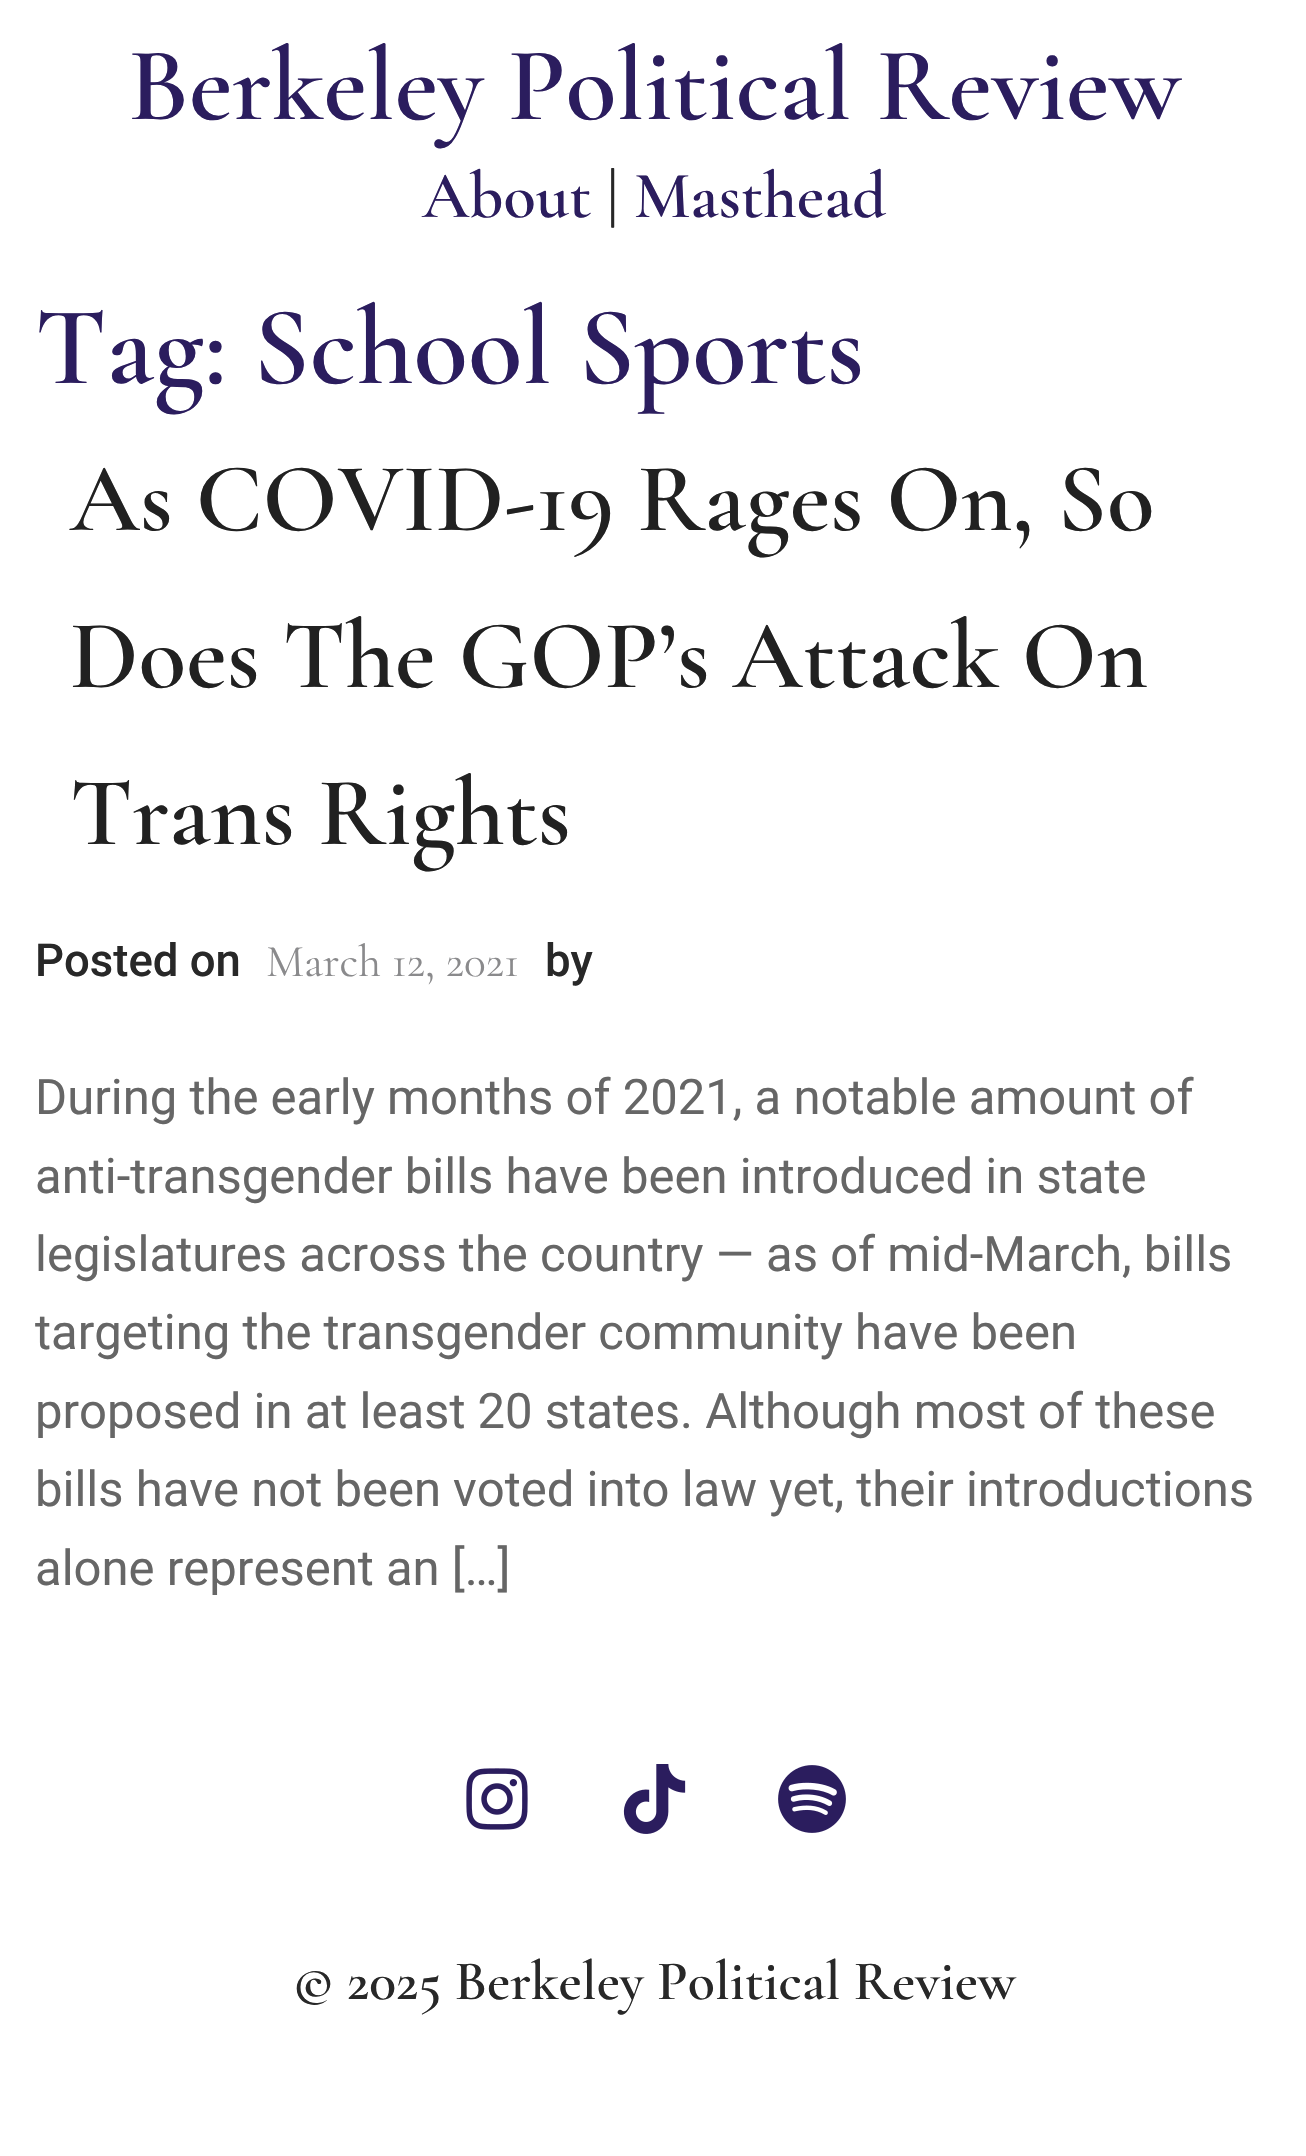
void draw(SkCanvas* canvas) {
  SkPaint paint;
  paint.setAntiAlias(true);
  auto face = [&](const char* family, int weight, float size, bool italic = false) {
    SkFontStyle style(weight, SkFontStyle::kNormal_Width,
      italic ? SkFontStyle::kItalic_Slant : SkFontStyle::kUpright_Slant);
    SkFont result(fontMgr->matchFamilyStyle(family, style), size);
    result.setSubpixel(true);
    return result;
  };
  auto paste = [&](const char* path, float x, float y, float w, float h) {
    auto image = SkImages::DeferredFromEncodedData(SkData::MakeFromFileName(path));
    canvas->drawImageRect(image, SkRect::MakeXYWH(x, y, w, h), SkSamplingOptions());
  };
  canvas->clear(0xffffffff);
  paste("img/1.png", 466, 1768, 62, 62);
  paste("img/2.png", 623, 1764, 63, 70);
  paste("img/3.png", 778, 1765, 68, 68);
  auto f0 = face("Cormorant Garamond", 600, 105);
  paint.setColor(0xff2b1d5e);
  canvas->drawString("Berkeley Political Review", 128, 119, f0, paint);
  auto f1 = face("Cormorant Garamond", 600, 66.5f);
  canvas->drawString("About", 422, 217, f1, paint);
  paint.setColor(0xff282828);
  canvas->drawString("|", 607, 217, f1, paint);
  paint.setColor(0xff2b1d5e);
  canvas->drawString("Masthead", 634, 217, f1, paint);
  auto f2 = face("Cormorant Garamond", 600, 112);
  canvas->drawString("Tag: School Sports", 35, 383, f2, paint);
  auto f3 = face("Cormorant Garamond", 600, 98);
  paint.setColor(0xff212121);
  {
    const struct { const char* s; float x, y; } items[] = {
      {"As COVID-19 Rages On, So", 70, 530},
      {"Does The GOP’s Attack On", 70, 687},
      {"Trans Rights", 70, 844},
    };
    for (auto [s, x, y] : items) {
      canvas->drawString(s, x, y, f3, paint);
    }
  }
  auto f4 = face("Roboto", 500, 45.5f);
  paint.setColor(0xff282828);
  canvas->drawString("Posted on", 35, 976, f4, paint);
  auto f5 = face("Cormorant Garamond", 400, 45.5f);
  paint.setColor(0xff8a8a8c);
  canvas->drawString("March 12, 2021", 266, 976, f5, paint);
  paint.setColor(0xff282828);
  canvas->drawString("by", 545, 976, f4, paint);
  auto f6 = face("Roboto", 400, 49);
  paint.setColor(0xff666666);
  {
    const struct { const char* s; float x, y; } items[] = {
      {"During the early months of 2021, a notable amount of", 35, 1114},
      {"anti-transgender bills have been introduced in state", 35, 1193},
      {"legislatures across the country — as of mid-March, bills", 35, 1271},
      {"targeting the transgender community have been", 35, 1349},
      {"proposed in at least 20 states. Although most of these", 35, 1428},
      {"bills have not been voted into law yet, their introductions", 35, 1506},
      {"alone represent an […]", 35, 1585},
    };
    for (auto [s, x, y] : items) {
      canvas->drawString(s, x, y, f6, paint);
    }
  }
  auto f7 = face("Cormorant Garamond", 600, 56);
  paint.setColor(0xff282828);
  canvas->drawString("© 2025 Berkeley Political Review", 293, 1999, f7, paint);
}
